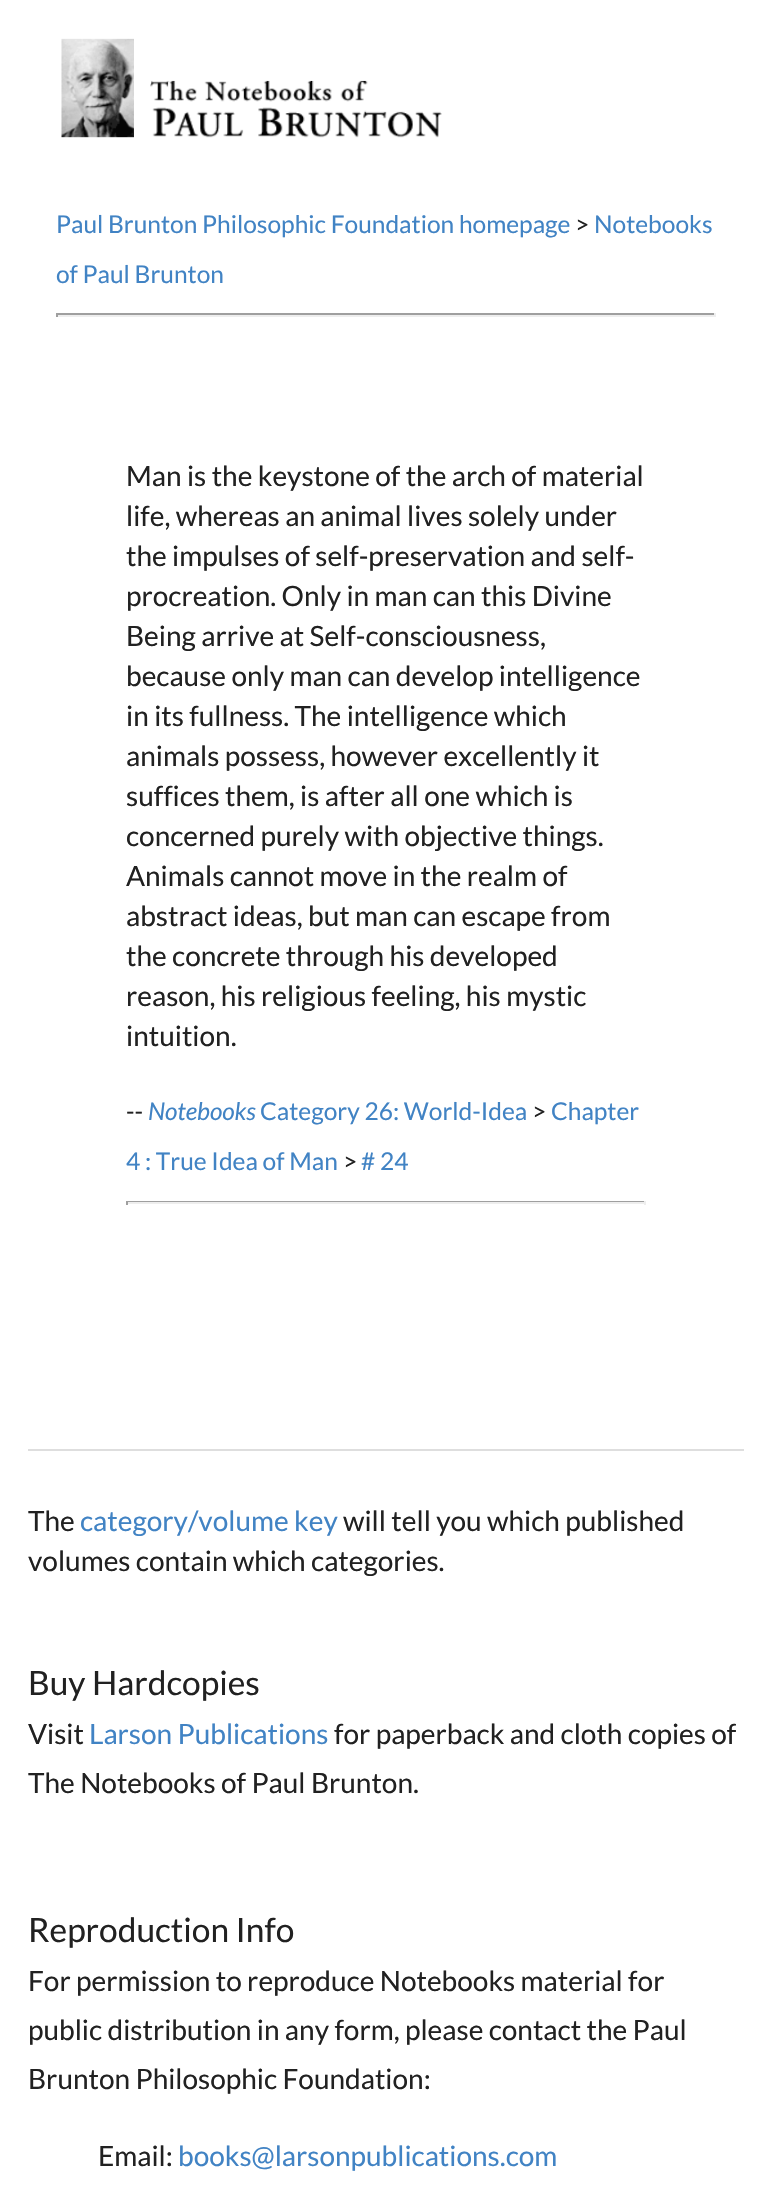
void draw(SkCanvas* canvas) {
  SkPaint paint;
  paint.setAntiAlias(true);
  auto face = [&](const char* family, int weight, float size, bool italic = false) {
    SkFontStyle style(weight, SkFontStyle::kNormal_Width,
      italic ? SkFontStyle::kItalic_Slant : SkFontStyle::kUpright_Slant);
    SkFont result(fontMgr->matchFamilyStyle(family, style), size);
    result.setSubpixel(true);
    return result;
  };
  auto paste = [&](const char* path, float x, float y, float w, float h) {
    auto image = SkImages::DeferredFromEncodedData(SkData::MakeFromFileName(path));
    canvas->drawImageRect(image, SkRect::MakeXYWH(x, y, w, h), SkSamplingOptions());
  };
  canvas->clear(0xffffffff);
  paste("img/1.png", 61, 38, 381, 100);
  {
    const struct { float x, y, w, h; SkColor color; } items[] = {
      {56, 313, 660, 2, 0xff9f9f9f},
      {714, 313, 2, 4, 0xffeeeeee},
      {56, 315, 660, 2, 0xffeeeeee},
      {56, 313, 2, 4, 0xff9f9f9f},
      {126, 1201, 520, 1, 0xff9f9f9f},
      {644, 1201, 2, 4, 0xffeeeeee},
      {126, 1202, 520, 2, 0xffeeeeee},
      {126, 1201, 2, 4, 0xff9f9f9f},
      {28, 1449, 716, 2, 0xffdedede},
    };
    for (auto [x, y, w, h, color] : items) {
      paint.setColor(color);
      canvas->drawRect(SkRect::MakeXYWH(x, y, w, h), paint);
    }
  }
  auto f0 = face("Lato", 400, 24.5f);
  paint.setColor(0xff4183c4);
  canvas->drawString("Paul Brunton Philosophic Foundation homepage", 56, 233, f0, paint);
  paint.setColor(0xff212121);
  canvas->drawString(">", 575, 233, f0, paint);
  paint.setColor(0xff4183c4);
  canvas->drawString("Notebooks", 594, 233, f0, paint);
  canvas->drawString("of Paul Brunton", 56, 283, f0, paint);
  auto f1 = face("Lato", 400, 28);
  paint.setColor(0xff212121);
  {
    const struct { const char* s; float x, y; } items[] = {
      {"Man is the keystone of the arch of material", 126, 486},
      {"life, whereas an animal lives solely under", 126, 526},
      {"the impulses of self-preservation and self-", 126, 566},
      {"procreation. Only in man can this Divine", 126, 606},
      {"Being arrive at Self-consciousness,", 126, 646},
      {"because only man can develop intelligence", 126, 686},
      {"in its fullness. The intelligence which", 126, 726},
      {"animals possess, however excellently it", 126, 766},
      {"suffices them, is after all one which is", 126, 806},
      {"concerned purely with objective things.", 126, 846},
      {"Animals cannot move in the realm of", 126, 886},
      {"abstract ideas, but man can escape from", 126, 926},
      {"the concrete through his developed", 126, 966},
      {"reason, his religious feeling, his mystic", 126, 1006},
      {"intuition.", 126, 1046},
    };
    for (auto [s, x, y] : items) {
      canvas->drawString(s, x, y, f1, paint);
    }
  }
  canvas->drawString("--", 126, 1120, f0, paint);
  auto f2 = face("Lato", 400, 24.5f, true);
  paint.setColor(0xff4183c4);
  canvas->drawString("Notebooks", 148, 1120, f2, paint);
  canvas->drawString("Category 26: World-Idea", 260, 1120, f0, paint);
  paint.setColor(0xff212121);
  canvas->drawString(">", 532, 1120, f0, paint);
  paint.setColor(0xff4183c4);
  canvas->drawString("Chapter", 551, 1120, f0, paint);
  canvas->drawString("4 : True Idea of Man", 126, 1170, f0, paint);
  paint.setColor(0xff212121);
  canvas->drawString(">", 343, 1170, f0, paint);
  paint.setColor(0xff4183c4);
  canvas->drawString("# 24", 361, 1170, f0, paint);
  paint.setColor(0xff212121);
  canvas->drawString("The", 28, 1531, f1, paint);
  paint.setColor(0xff4183c4);
  canvas->drawString("category/volume key", 80, 1531, f1, paint);
  paint.setColor(0xff212121);
  canvas->drawString("will tell you which published", 343, 1531, f1, paint);
  canvas->drawString("volumes contain which categories.", 28, 1571, f1, paint);
  auto f3 = face("Lato", 400, 33.5f);
  canvas->drawString("Buy Hardcopies", 28, 1695, f3, paint);
  canvas->drawString("Visit", 28, 1744, f1, paint);
  paint.setColor(0xff4183c4);
  canvas->drawString("Larson Publications", 89, 1744, f1, paint);
  paint.setColor(0xff212121);
  canvas->drawString("for paperback and cloth copies of", 334, 1744, f1, paint);
  canvas->drawString("The Notebooks of Paul Brunton.", 28, 1793, f1, paint);
  canvas->drawString("Reproduction Info", 28, 1942, f3, paint);
  {
    const struct { const char* s; float x, y; } items[] = {
      {"For permission to reproduce Notebooks material for", 28, 1991},
      {"public distribution in any form, please contact the Paul", 28, 2040},
      {"Brunton Philosophic Foundation:", 28, 2089},
      {"Email:", 98, 2166},
    };
    for (auto [s, x, y] : items) {
      canvas->drawString(s, x, y, f1, paint);
    }
  }
  paint.setColor(0xff4183c4);
  canvas->drawString("books@larsonpublications.com", 178, 2166, f1, paint);
}
